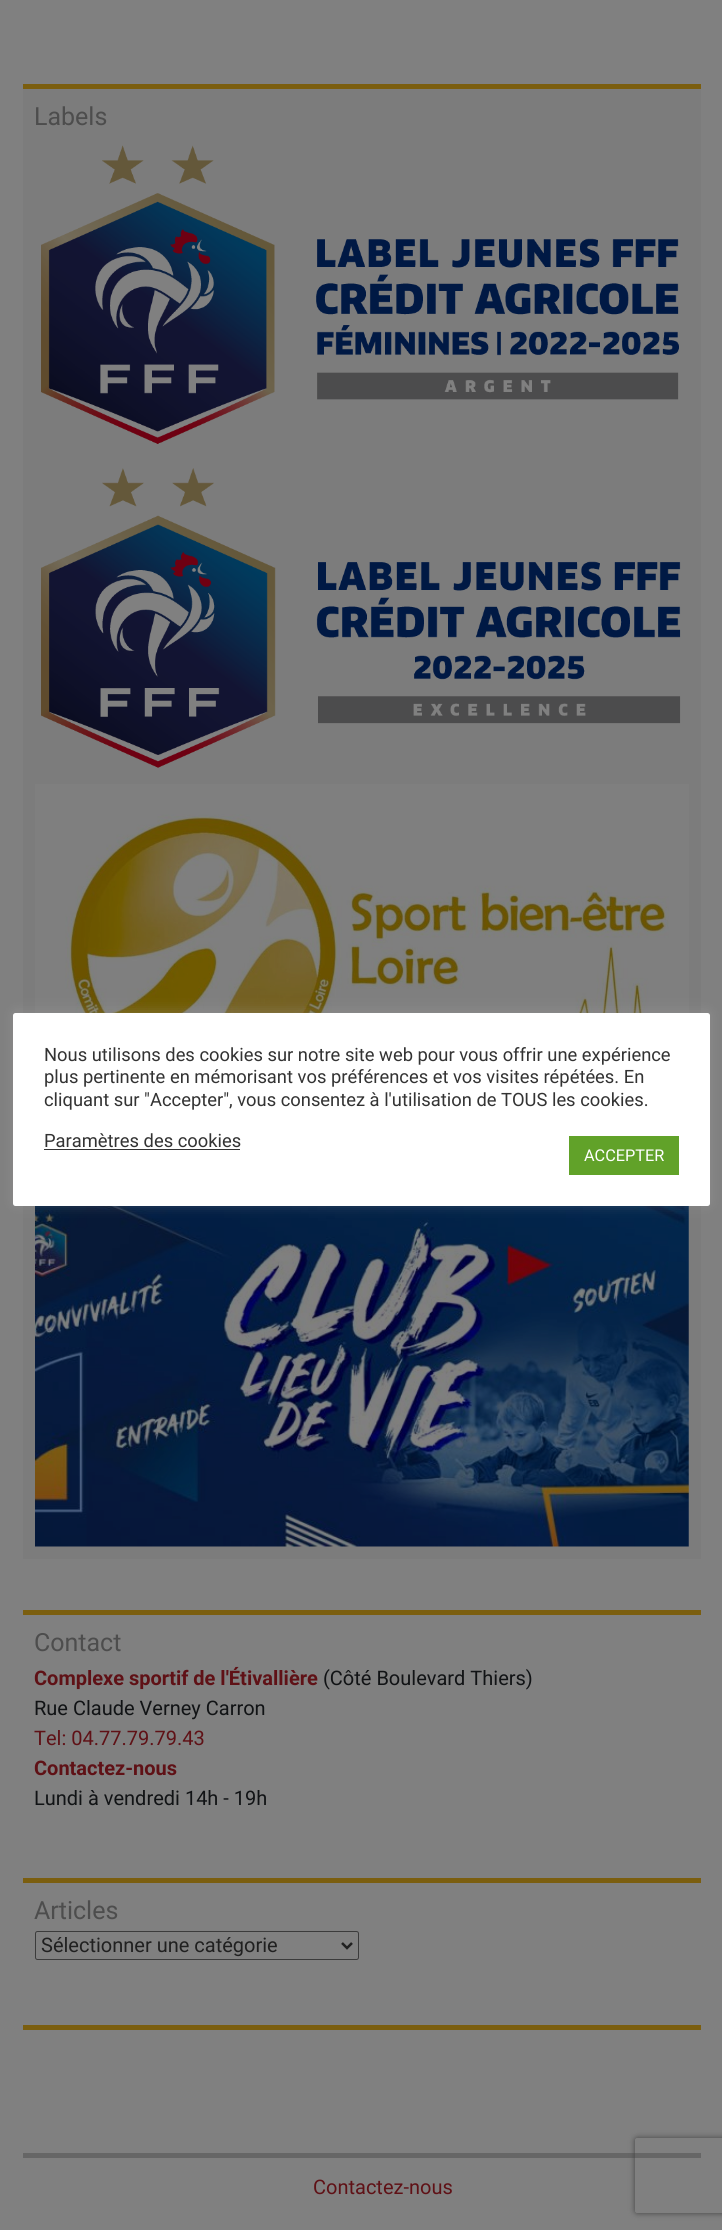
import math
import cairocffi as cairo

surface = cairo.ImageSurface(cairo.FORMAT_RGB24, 722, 2230)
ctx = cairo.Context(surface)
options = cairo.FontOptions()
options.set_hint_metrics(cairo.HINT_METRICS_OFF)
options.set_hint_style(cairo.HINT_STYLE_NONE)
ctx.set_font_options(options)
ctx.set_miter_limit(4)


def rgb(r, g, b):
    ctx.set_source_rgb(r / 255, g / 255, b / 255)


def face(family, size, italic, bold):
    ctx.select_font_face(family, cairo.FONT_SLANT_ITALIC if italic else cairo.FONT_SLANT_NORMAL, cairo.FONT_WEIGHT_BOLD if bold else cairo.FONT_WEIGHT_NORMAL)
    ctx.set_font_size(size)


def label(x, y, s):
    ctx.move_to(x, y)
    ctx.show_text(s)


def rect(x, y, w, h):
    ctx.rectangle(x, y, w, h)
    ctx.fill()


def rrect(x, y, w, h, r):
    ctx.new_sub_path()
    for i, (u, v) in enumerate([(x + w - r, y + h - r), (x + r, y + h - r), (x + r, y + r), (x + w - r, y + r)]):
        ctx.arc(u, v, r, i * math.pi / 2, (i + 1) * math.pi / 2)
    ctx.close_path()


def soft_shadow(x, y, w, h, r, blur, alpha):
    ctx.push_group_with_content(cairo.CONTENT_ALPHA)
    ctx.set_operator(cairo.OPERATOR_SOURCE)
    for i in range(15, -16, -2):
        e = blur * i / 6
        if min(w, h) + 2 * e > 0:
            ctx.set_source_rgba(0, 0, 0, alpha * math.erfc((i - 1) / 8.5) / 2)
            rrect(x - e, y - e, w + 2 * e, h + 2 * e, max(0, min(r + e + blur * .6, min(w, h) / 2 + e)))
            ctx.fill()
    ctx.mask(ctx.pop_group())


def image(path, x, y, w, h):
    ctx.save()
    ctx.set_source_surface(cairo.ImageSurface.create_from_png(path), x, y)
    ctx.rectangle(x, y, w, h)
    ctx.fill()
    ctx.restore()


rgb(128, 128, 128)
ctx.paint()
rgb(124, 124, 124)
rect(23, 89, 678, 1470)
rgb(123, 94, 15)
rect(23, 84, 678, 5)
face('Roboto', 25, 0, 0)
rgb(77, 77, 77)
label(34, 125, 'Labels')
image('image0.png', 41, 145, 638, 299)
image('image1.png', 41, 468, 640, 300)
image('image2.png', 35, 784, 654, 229)
image('image3.png', 35, 1206, 654, 341)
rgb(123, 94, 15)
rect(23, 1610, 678, 5)
rgb(77, 77, 77)
label(34, 1651, 'Contact')
face('Roboto', 20, 0, 1)
rgb(95, 17, 22)
label(34, 1685, 'Complexe sportif de l\'Étivallière')
face('Roboto', 20, 0, 0)
rgb(17, 19, 21)
label(323, 1685, '(Côté Boulevard Thiers)')
label(34, 1715, 'Rue Claude Verney Carron')
rgb(95, 17, 22)
label(34, 1745, 'Tel: 04.77.79.79.43')
face('Roboto', 20, 0, 1)
label(34, 1775, 'Contactez-nous')
face('Roboto', 20, 0, 0)
rgb(17, 19, 21)
label(34, 1805, 'Lundi à vendredi 14h - 19h')
rgb(123, 94, 15)
rect(23, 1878, 678, 5)
face('Roboto', 25, 0, 0)
rgb(77, 77, 77)
label(34, 1919, 'Articles')
rrect(35.5, 1931.5, 323, 28, 2)
rgb(59, 59, 59)
ctx.set_line_width(1)
ctx.stroke()
ctx.new_path()
ctx.move_to(342, 1943)
ctx.line_to(347, 1948)
ctx.line_to(352, 1943)
rgb(32, 32, 32)
ctx.set_line_width(2.5)
ctx.stroke()
face('Roboto', 20, 0, 0)
label(41, 1952, 'Sélectionner une catégorie')
rgb(123, 94, 15)
rect(23, 2025, 678, 5)
rgb(102, 102, 102)
rect(23, 2153, 678, 5)
rgb(95, 17, 22)
label(313, 2194, 'Contactez-nous')
rgb(172, 171, 171)
soft_shadow(13, 1011, 697, 194, 2.5, 6, 0.3)
rgb(255, 255, 255)
rrect(13, 1013, 697, 193, 2.5)
ctx.fill()
face('Roboto', 18.35, 0, 0)
rgb(51, 51, 51)
label(44, 1061, 'Nous utilisons des cookies sur notre site web pour vous offrir une expérience')
label(44, 1083, 'plus pertinente en mémorisant vos préférences et vos visites répétées. En')
label(44, 1106, 'cliquant sur "Accepter", vous consentez à l\'utilisation de TOUS les cookies.')
label(44, 1147, 'Paramètres des cookies')
rect(44, 1149, 196, 1)
rgb(97, 162, 41)
rect(569, 1136, 110, 39)
face('Roboto', 16.25, 0, 0)
rgb(255, 255, 255)
label(584, 1161, 'ACCEPTER')
ctx.save()
ctx.set_fill_rule(cairo.FILL_RULE_EVEN_ODD)
ctx.new_path()
ctx.move_to(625, 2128)
ctx.line_to(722, 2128)
ctx.line_to(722, 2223)
ctx.line_to(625, 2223)
ctx.close_path()
ctx.move_to(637.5, 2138)
ctx.line_to(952.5, 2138)
ctx.curve_to(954, 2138, 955, 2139, 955, 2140.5)
ctx.line_to(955, 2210.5)
ctx.curve_to(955, 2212, 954, 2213, 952.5, 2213)
ctx.line_to(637.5, 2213)
ctx.curve_to(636, 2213, 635, 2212, 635, 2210.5)
ctx.line_to(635, 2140.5)
ctx.curve_to(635, 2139, 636, 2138, 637.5, 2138)
ctx.close_path()
ctx.clip()
rgb(64, 64, 64)
soft_shadow(635, 2138, 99, 75, 2.5, 3, 1)
ctx.restore()
surface.write_to_png('render.png')
